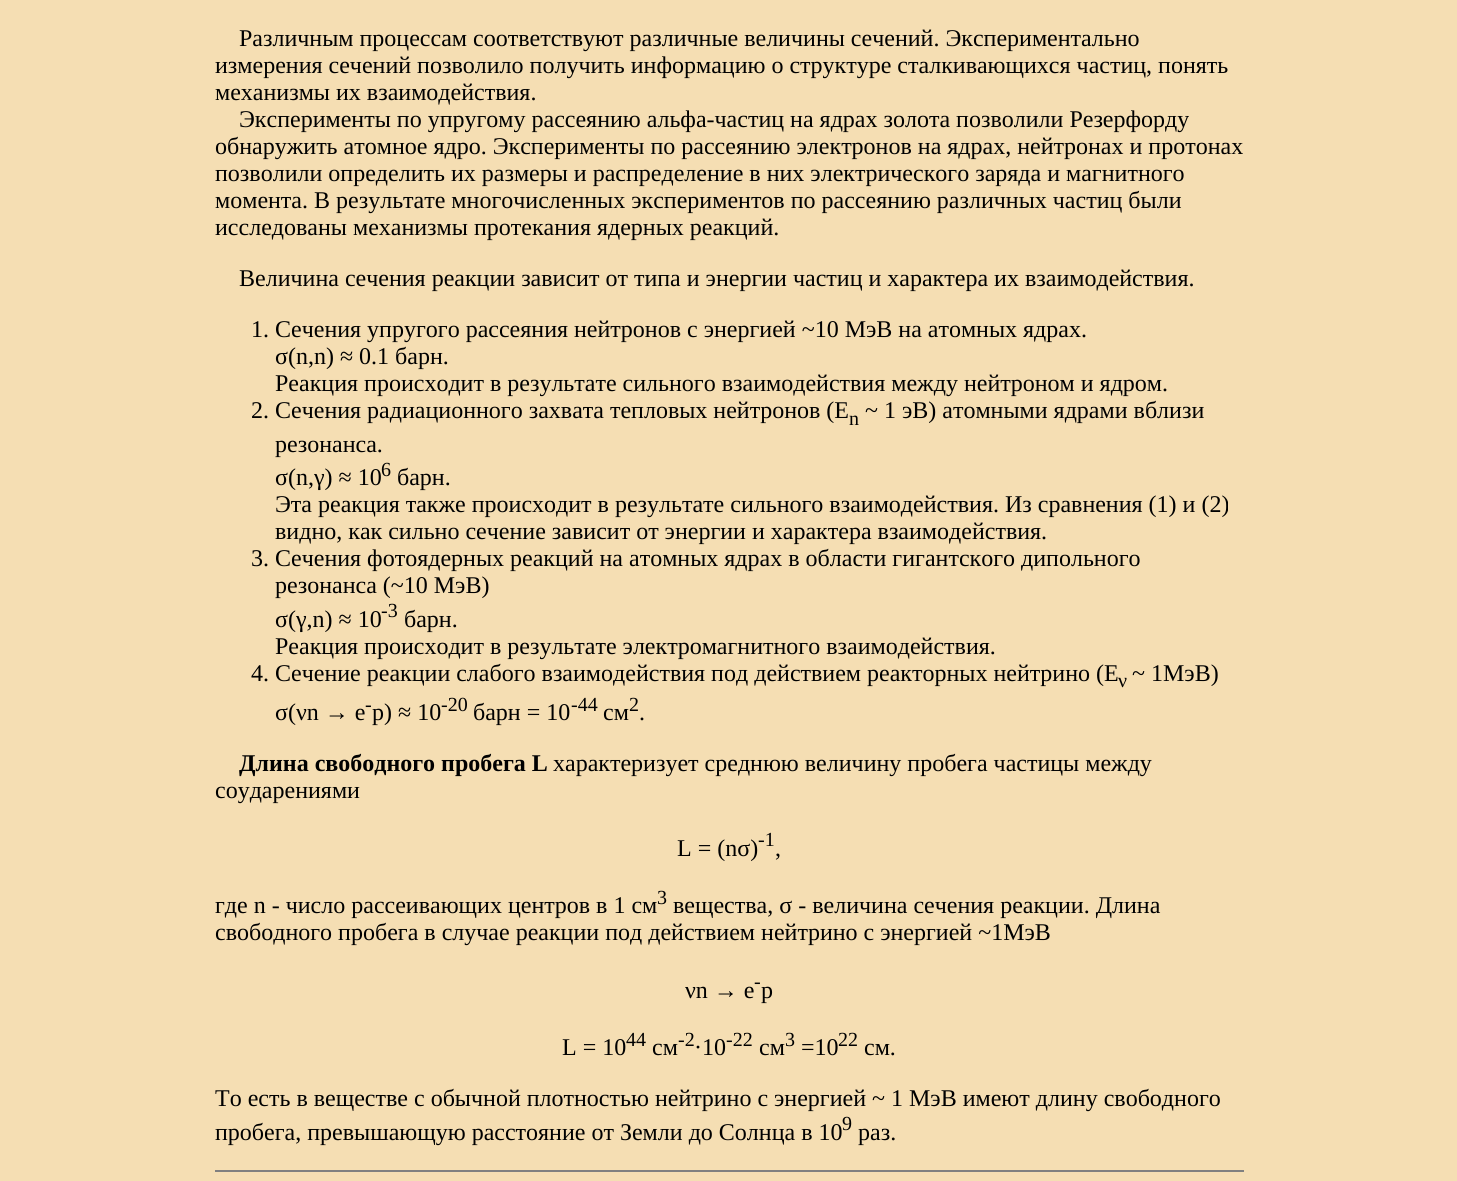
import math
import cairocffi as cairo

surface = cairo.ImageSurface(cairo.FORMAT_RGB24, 1457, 1181)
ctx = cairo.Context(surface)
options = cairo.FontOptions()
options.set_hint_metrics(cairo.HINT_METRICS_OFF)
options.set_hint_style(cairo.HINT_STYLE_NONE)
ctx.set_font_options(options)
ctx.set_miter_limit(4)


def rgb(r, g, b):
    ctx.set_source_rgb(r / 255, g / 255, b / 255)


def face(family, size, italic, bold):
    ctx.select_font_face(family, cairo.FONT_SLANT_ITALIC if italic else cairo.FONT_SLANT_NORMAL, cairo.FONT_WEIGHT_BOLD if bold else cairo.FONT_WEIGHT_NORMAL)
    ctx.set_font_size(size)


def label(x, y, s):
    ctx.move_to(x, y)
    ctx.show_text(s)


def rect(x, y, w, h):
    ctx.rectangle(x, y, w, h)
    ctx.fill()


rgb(245, 222, 179)
ctx.paint()
face('Liberation Serif', 24, 0, 0)
rgb(0, 0, 0)
label(239, 46, 'Различным процессам соответствуют различные величины сечений. Экспериментально')
label(215, 73, 'измерения сечений позволило получить информацию о структуре сталкивающихся частиц, понять')
label(215, 100, 'механизмы их взаимодействия.')
label(239, 127, 'Эксперименты по упругому рассеянию альфа-частиц на ядрах золота позволили Резерфорду')
label(215, 154, 'обнаружить атомное ядро. Эксперименты по рассеянию электронов на ядрах, нейтронах и протонах')
label(215, 181, 'позволили определить их размеры и распределение в них электрического заряда и магнитного')
label(215, 208, 'момента. В результате многочисленных экспериментов по рассеянию различных частиц были')
label(215, 235, 'исследованы механизмы протекания ядерных реакций.')
label(239, 286, 'Величина сечения реакции зависит от типа и энергии частиц и характера их взаимодействия.')
label(251, 337, '1. Сечения упругого рассеяния нейтронов с энергией ~10 МэВ на атомных ядрах.')
label(275, 364, 'σ(n,n) ≈ 0.1 барн.')
label(275, 391, 'Реакция происходит в результате сильного взаимодействия между нейтроном и ядром.')
label(251, 418, '2. Сечения радиационного захвата тепловых нейтронов (E')
face('Liberation Serif', 20, 0, 0)
label(849, 425, 'n')
face('Liberation Serif', 24, 0, 0)
label(865, 418, '~ 1 эВ) атомными ядрами вблизи')
label(275, 452, 'резонанса.')
label(275, 485, 'σ(n,γ) ≈ 10')
face('Liberation Serif', 20, 0, 0)
label(381, 476, '6')
face('Liberation Serif', 24, 0, 0)
label(397, 485, 'барн.')
label(275, 512, 'Эта реакция также происходит в результате сильного взаимодействия. Из сравнения (1) и (2)')
label(275, 539, 'видно, как сильно сечение зависит от энергии и характера взаимодействия.')
label(251, 566, '3. Сечения фотоядерных реакций на атомных ядрах в области гигантского дипольного')
label(275, 593, 'резонанса (~10 МэВ)')
label(275, 627, 'σ(γ,n) ≈ 10')
face('Liberation Serif', 20, 0, 0)
label(381, 617, '-3')
face('Liberation Serif', 24, 0, 0)
label(404, 627, 'барн.')
label(275, 654, 'Реакция происходит в результате электромагнитного взаимодействия.')
label(251, 681, '4. Сечение реакции слабого взаимодействия под действием реакторных нейтрино (E')
face('Liberation Serif', 20, 0, 0)
label(1118, 687, 'ν')
face('Liberation Serif', 24, 0, 0)
label(1132, 681, '~ 1МэВ)')
label(275, 720, 'σ(νn → e')
face('Liberation Serif', 20, 0, 0)
label(365, 711, '-')
face('Liberation Serif', 24, 0, 0)
label(372, 720, 'p) ≈ 10')
face('Liberation Serif', 20, 0, 0)
label(441, 711, '-20')
face('Liberation Serif', 24, 0, 0)
label(473, 720, 'барн = 10')
face('Liberation Serif', 20, 0, 0)
label(571, 711, '-44')
label(629, 711, '2')
face('Liberation Serif', 24, 0, 0)
label(603, 720, 'см')
label(639, 720, '.')
face('Liberation Serif', 24, 0, 1)
label(239, 771, 'Длина свободного пробега L')
face('Liberation Serif', 24, 0, 0)
label(553, 771, 'характеризует среднюю величину пробега частицы между')
label(215, 798, 'соударениями')
label(677, 856, 'L = (nσ)')
face('Liberation Serif', 20, 0, 0)
label(758, 846, '-1')
face('Liberation Serif', 24, 0, 0)
label(775, 856, ',')
label(215, 913, 'где n - число рассеивающих центров в 1 см')
face('Liberation Serif', 20, 0, 0)
label(657, 904, '3')
face('Liberation Serif', 24, 0, 0)
label(673, 913, 'вещества, σ - величина сечения реакции. Длина')
label(215, 940, 'свободного пробега в случае реакции под действием нейтрино с энергией ~1МэВ')
face('Liberation Serif', 20, 0, 0)
label(754, 988, '-')
face('Liberation Serif', 24, 0, 0)
label(685, 998, 'νn → e')
label(761, 998, 'p')
label(562, 1055, 'L = 10')
face('Liberation Serif', 20, 0, 0)
label(626, 1046, '44')
face('Liberation Serif', 24, 0, 0)
label(652, 1055, 'см')
face('Liberation Serif', 20, 0, 0)
label(678, 1046, '-2')
face('Liberation Serif', 24, 0, 0)
label(694, 1055, '·10')
face('Liberation Serif', 20, 0, 0)
label(726, 1046, '-22')
face('Liberation Serif', 24, 0, 0)
label(759, 1055, 'см')
face('Liberation Serif', 20, 0, 0)
label(785, 1046, '3')
face('Liberation Serif', 24, 0, 0)
label(801, 1055, '=10')
face('Liberation Serif', 20, 0, 0)
label(838, 1046, '22')
face('Liberation Serif', 24, 0, 0)
label(864, 1055, 'см.')
label(215, 1106, 'То есть в веществе с обычной плотностью нейтрино с энергией ~ 1 МэВ имеют длину свободного')
label(215, 1140, 'пробега, превышающую расстояние от Земли до Солнца в 10')
face('Liberation Serif', 20, 0, 0)
label(842, 1130, '9')
face('Liberation Serif', 24, 0, 0)
label(858, 1140, 'раз.')
rgb(128, 128, 128)
rect(215, 1170, 1029, 2)
surface.write_to_png('render.png')
